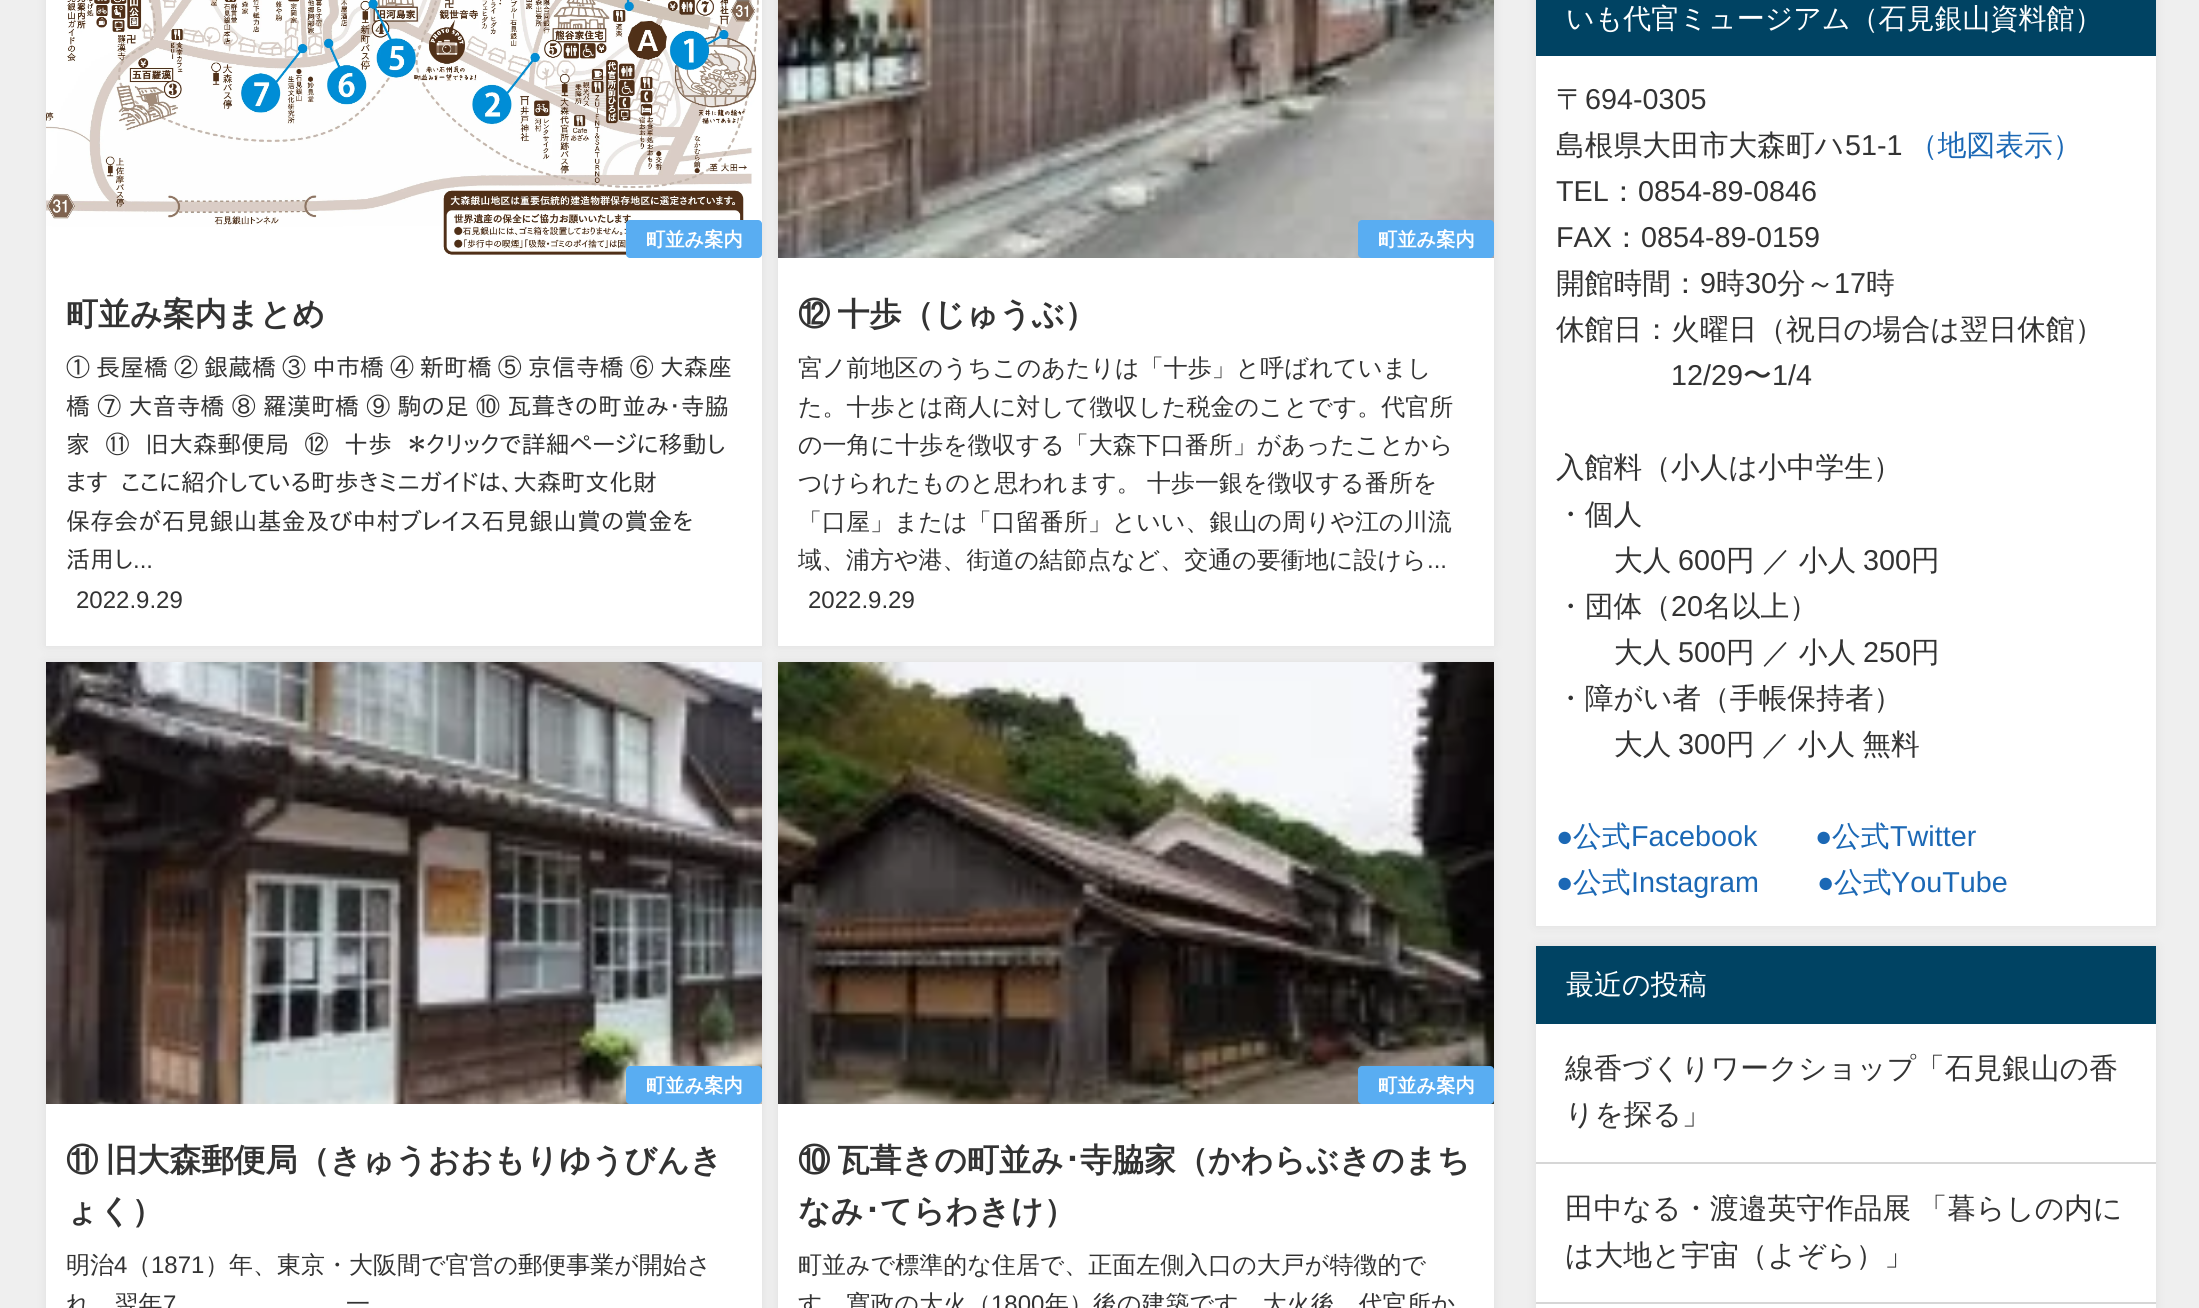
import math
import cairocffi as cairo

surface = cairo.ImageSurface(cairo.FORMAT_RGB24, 2199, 1308)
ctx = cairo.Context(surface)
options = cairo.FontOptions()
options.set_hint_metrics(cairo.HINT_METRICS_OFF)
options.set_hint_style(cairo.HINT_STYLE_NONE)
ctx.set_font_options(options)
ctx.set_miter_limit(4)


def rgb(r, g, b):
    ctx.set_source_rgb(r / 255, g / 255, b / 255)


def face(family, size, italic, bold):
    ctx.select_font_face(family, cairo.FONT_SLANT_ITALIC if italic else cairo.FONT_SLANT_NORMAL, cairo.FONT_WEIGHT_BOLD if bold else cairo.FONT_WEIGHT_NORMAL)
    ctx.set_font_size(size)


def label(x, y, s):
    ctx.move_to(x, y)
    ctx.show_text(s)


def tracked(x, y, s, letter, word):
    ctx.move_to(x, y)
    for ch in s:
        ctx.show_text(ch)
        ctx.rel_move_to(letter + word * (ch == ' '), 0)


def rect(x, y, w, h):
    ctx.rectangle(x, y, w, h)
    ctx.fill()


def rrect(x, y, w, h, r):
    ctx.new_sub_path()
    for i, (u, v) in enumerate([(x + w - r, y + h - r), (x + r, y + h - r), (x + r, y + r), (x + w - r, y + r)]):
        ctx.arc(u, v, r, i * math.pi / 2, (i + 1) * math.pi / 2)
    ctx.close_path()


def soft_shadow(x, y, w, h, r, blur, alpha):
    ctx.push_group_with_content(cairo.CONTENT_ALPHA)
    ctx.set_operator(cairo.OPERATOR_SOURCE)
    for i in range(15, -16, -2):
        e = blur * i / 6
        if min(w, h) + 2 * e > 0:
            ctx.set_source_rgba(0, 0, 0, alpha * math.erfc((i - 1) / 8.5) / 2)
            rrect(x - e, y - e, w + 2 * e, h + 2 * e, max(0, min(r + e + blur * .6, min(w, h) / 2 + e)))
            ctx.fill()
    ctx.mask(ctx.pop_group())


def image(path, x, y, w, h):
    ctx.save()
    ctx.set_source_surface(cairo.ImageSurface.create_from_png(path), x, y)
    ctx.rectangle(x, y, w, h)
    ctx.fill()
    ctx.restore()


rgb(239, 239, 239)
ctx.paint()
rgb(150, 150, 150)
soft_shadow(46, -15, 716, 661, 0, 5, 0.2)
rgb(255, 255, 255)
rect(46, 258, 716, 388)
image('image0.png', 46, 0, 716, 258)
rgb(89, 173, 242)
rrect(626, 220, 136, 38, 4)
ctx.fill()
face('WenQuanYi Zen Hei', 19.25, 0, 1)
rgb(255, 255, 255)
label(646, 246, '町並み案内')
face('WenQuanYi Zen Hei', 32, 0, 1)
rgb(51, 51, 51)
label(66, 325, '町並み案内まとめ')
face('IPAPGothic', 24, 0, 0)
tracked(66, 376, '① 長屋橋 ② 銀蔵橋 ③ 中市橋 ④ 新町橋 ⑤ 京信寺橋 ⑥ 大森座', 0, -0.5)
tracked(66, 415, '橋 ⑦ 大音寺橋 ⑧ 羅漢町橋 ⑨ 駒の足 ⑩ 瓦葺きの町並み･寺脇', 0, 0.75)
tracked(66, 453, '家 ⑪ 旧大森郵便局 ⑫ 十歩 ＊クリックで詳細ページに移動し', 0, 9)
label(66, 491, 'ます')
label(121, 491, 'ここに紹介している町歩きミニガイドは、大森町文化財')
label(66, 530, '保存会が石見銀山基金及び中村ブレイス石見銀山賞の賞金を')
label(66, 568, '活用し')
face('Liberation Sans', 24, 0, 0)
label(133, 568, '...')
label(76, 608, '2022.9.29')
rgb(150, 150, 150)
soft_shadow(778, -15, 716, 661, 0, 5, 0.2)
rgb(255, 255, 255)
rect(778, 258, 716, 388)
image('image1.png', 778, 0, 716, 258)
rgb(89, 173, 242)
rrect(1358, 220, 136, 38, 4)
ctx.fill()
face('WenQuanYi Zen Hei', 19.25, 0, 1)
rgb(255, 255, 255)
label(1378, 246, '町並み案内')
face('WenQuanYi Zen Hei', 32, 0, 1)
rgb(51, 51, 51)
tracked(798, 325, '⑫ 十歩（じゅうぶ）', 0, -2)
face('WenQuanYi Zen Hei Medium', 24, 0, 0)
label(798, 376, '宮ノ前地区のうちこのあたりは「十歩」と呼ばれていまし')
label(798, 415, 'た。十歩とは商人に対して徴収した税金のことです。代官所')
label(798, 453, 'の一角に十歩を徴収する「大森下口番所」があったことから')
tracked(798, 491, 'つけられたものと思われます。 十歩一銀を徴収する番所を', 0, -1)
label(798, 530, '「口屋」または「口留番所」といい、銀山の周りや江の川流')
label(798, 568, '域、浦方や港、街道の結節点など、交通の要衝地に設けら')
face('Liberation Sans', 24, 0, 0)
label(1427, 568, '...')
label(808, 608, '2022.9.29')
rgb(150, 150, 150)
soft_shadow(46, 662, 716, 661, 0, 5, 0.2)
rgb(255, 255, 255)
rect(46, 1104, 716, 204)
image('image2.png', 46, 662, 716, 442)
rgb(89, 173, 242)
rrect(626, 1066, 136, 38, 4)
ctx.fill()
face('WenQuanYi Zen Hei', 19.25, 0, 1)
rgb(255, 255, 255)
label(646, 1092, '町並み案内')
face('WenQuanYi Zen Hei', 32, 0, 1)
rgb(51, 51, 51)
tracked(66, 1171, '⑪ 旧大森郵便局（きゅうおおもりゆうびんき', 0, -2)
label(66, 1222, 'ょく）')
face('WenQuanYi Zen Hei Medium', 24, 0, 0)
label(66, 1273, '明治')
face('Liberation Sans', 24, 0, 0)
label(114, 1273, '4')
face('WenQuanYi Zen Hei Medium', 24, 0, 0)
label(127, 1273, '（')
face('Liberation Sans', 24, 0, 0)
label(151, 1273, '1871')
face('WenQuanYi Zen Hei Medium', 24, 0, 0)
label(205, 1273, '）年、東京・大阪間で官営の郵便事業が開始さ')
label(66, 1312, 'れ、翌年')
face('Liberation Sans', 24, 0, 0)
label(163, 1312, '7')
face('WenQuanYi Zen Hei Medium', 24, 0, 0)
label(346, 1312, '一')
rgb(150, 150, 150)
soft_shadow(778, 662, 716, 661, 0, 5, 0.2)
rgb(255, 255, 255)
rect(778, 1104, 716, 204)
image('image3.png', 778, 662, 716, 442)
rgb(89, 173, 242)
rrect(1358, 1066, 136, 38, 4)
ctx.fill()
face('WenQuanYi Zen Hei', 19.25, 0, 1)
rgb(255, 255, 255)
label(1378, 1092, '町並み案内')
face('WenQuanYi Zen Hei', 32, 0, 1)
rgb(51, 51, 51)
tracked(798, 1171, '⑩ 瓦葺きの町並み', 0, -2)
face('IPAPGothic', 32, 0, 1)
label(1064, 1171, '･')
face('WenQuanYi Zen Hei', 32, 0, 1)
label(1080, 1171, '寺脇家（かわらぶきのまち')
label(798, 1222, 'なみ')
face('IPAPGothic', 32, 0, 1)
label(864, 1222, '･')
face('WenQuanYi Zen Hei', 32, 0, 1)
label(880, 1222, 'てらわきけ）')
face('WenQuanYi Zen Hei Medium', 24, 0, 0)
label(798, 1273, '町並みで標準的な住居で、正面左側入口の大戸が特徴的で')
label(798, 1312, 'す。寛政の大火（')
face('Liberation Sans', 24, 0, 0)
label(991, 1312, '1800')
face('WenQuanYi Zen Hei Medium', 24, 0, 0)
label(1045, 1312, '年）後の建築です。大火後、代官所か')
rgb(150, 150, 150)
soft_shadow(1536, -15, 620, 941, 0, 5, 0.2)
rgb(255, 255, 255)
rect(1536, 56, 620, 870)
rgb(0, 67, 99)
rect(1536, 0, 620, 56)
face('WenQuanYi Zen Hei Medium', 28, 0, 0)
rgb(255, 255, 255)
label(1566, 28, 'いも代官ミュージアム（石見銀山資料館）')
face('WenQuanYi Zen Hei Medium', 28.75, 0, 0)
rgb(51, 51, 51)
label(1556, 109, '〒')
face('Liberation Sans', 28.75, 0, 0)
label(1585, 109, '694-0305')
face('WenQuanYi Zen Hei Medium', 28.75, 0, 0)
label(1556, 155, '島根県大田市大森町ハ')
face('Liberation Sans', 28.75, 0, 0)
label(1845, 155, '51-1')
face('WenQuanYi Zen Hei Medium', 28.75, 0, 0)
rgb(27, 104, 181)
label(1909, 155, '（地図表示）')
face('Liberation Sans', 28.75, 0, 0)
rgb(51, 51, 51)
label(1556, 201, 'TEL')
face('WenQuanYi Zen Hei Medium', 28.75, 0, 0)
label(1609, 201, '：')
face('Liberation Sans', 28.75, 0, 0)
label(1638, 201, '0854-89-0846')
label(1556, 247, 'FAX')
face('WenQuanYi Zen Hei Medium', 28.75, 0, 0)
label(1612, 247, '：')
face('Liberation Sans', 28.75, 0, 0)
label(1641, 247, '0854-89-0159')
face('WenQuanYi Zen Hei Medium', 28.75, 0, 0)
label(1556, 293, '開館時間：')
face('Liberation Sans', 28.75, 0, 0)
label(1700, 293, '9')
face('WenQuanYi Zen Hei Medium', 28.75, 0, 0)
label(1716, 293, '時')
face('Liberation Sans', 28.75, 0, 0)
label(1745, 293, '30')
face('WenQuanYi Zen Hei Medium', 28.75, 0, 0)
label(1777, 293, '分～')
face('Liberation Sans', 28.75, 0, 0)
label(1834, 293, '17')
face('WenQuanYi Zen Hei Medium', 28.75, 0, 0)
label(1866, 293, '時')
label(1556, 339, '休館日：火曜日（祝日の場合は翌日休館）')
face('Liberation Sans', 28.75, 0, 0)
label(1671, 385, '12/29')
face('WenQuanYi Zen Hei Medium', 28.75, 0, 0)
label(1743, 385, '〜')
face('Liberation Sans', 28.75, 0, 0)
label(1772, 385, '1/4')
face('WenQuanYi Zen Hei Medium', 28.75, 0, 0)
label(1556, 477, '入館料（小人は小中学生）')
label(1556, 524, '・個人')
label(1614, 570, '大人')
face('Liberation Sans', 28.75, 0, 0)
label(1678, 570, '600')
face('WenQuanYi Zen Hei Medium', 28.75, 0, 0)
tracked(1726, 570, '円 ／ 小人', 0, -1)
face('Liberation Sans', 28.75, 0, 0)
label(1863, 570, '300')
face('WenQuanYi Zen Hei Medium', 28.75, 0, 0)
label(1911, 570, '円')
label(1556, 616, '・団体（')
face('Liberation Sans', 28.75, 0, 0)
label(1671, 616, '20')
face('WenQuanYi Zen Hei Medium', 28.75, 0, 0)
label(1703, 616, '名以上）')
label(1614, 662, '大人')
face('Liberation Sans', 28.75, 0, 0)
label(1678, 662, '500')
face('WenQuanYi Zen Hei Medium', 28.75, 0, 0)
tracked(1726, 662, '円 ／ 小人', 0, -1)
face('Liberation Sans', 28.75, 0, 0)
label(1863, 662, '250')
face('WenQuanYi Zen Hei Medium', 28.75, 0, 0)
label(1911, 662, '円')
label(1556, 708, '・障がい者（手帳保持者）')
label(1614, 754, '大人')
face('Liberation Sans', 28.75, 0, 0)
label(1678, 754, '300')
face('WenQuanYi Zen Hei Medium', 28.75, 0, 0)
tracked(1726, 754, '円 ／ 小人 無料', 0, -1.5)
face('Liberation Sans', 28.75, 0, 0)
rgb(27, 104, 181)
label(1556, 846, '●')
face('WenQuanYi Zen Hei Medium', 28.75, 0, 0)
label(1573, 846, '公式')
face('Liberation Sans', 28.75, 0, 0)
label(1631, 846, 'Facebook')
label(1815, 846, '●')
face('WenQuanYi Zen Hei Medium', 28.75, 0, 0)
label(1832, 846, '公式')
face('Liberation Sans', 28.75, 0, 0)
label(1890, 846, 'Twitter')
label(1556, 892, '●')
face('WenQuanYi Zen Hei Medium', 28.75, 0, 0)
label(1573, 892, '公式')
face('Liberation Sans', 28.75, 0, 0)
label(1631, 892, 'Instagram')
label(1817, 892, '●')
face('WenQuanYi Zen Hei Medium', 28.75, 0, 0)
label(1834, 892, '公式')
face('Liberation Sans', 28.75, 0, 0)
label(1891, 892, 'YouTube')
rgb(150, 150, 150)
soft_shadow(1536, 946, 620, 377, 0, 5, 0.2)
rgb(255, 255, 255)
rect(1536, 1024, 620, 284)
rgb(0, 67, 99)
rect(1536, 946, 620, 78)
face('WenQuanYi Zen Hei Medium', 28, 0, 0)
rgb(255, 255, 255)
label(1566, 994, '最近の投稿')
rgb(214, 214, 214)
rect(1536, 1162, 620, 2)
face('WenQuanYi Zen Hei Medium', 28.75, 0, 0)
rgb(51, 51, 51)
label(1565, 1078, '線香づくりワークショップ「石見銀山の香')
label(1565, 1124, 'りを探る」')
rgb(214, 214, 214)
rect(1536, 1302, 620, 2)
rgb(51, 51, 51)
tracked(1565, 1218, '田中なる・渡邉英守作品展 「暮らしの内に', 0, -1.5)
label(1565, 1265, 'は大地と宇宙（よぞら）」')
surface.write_to_png('render.png')
